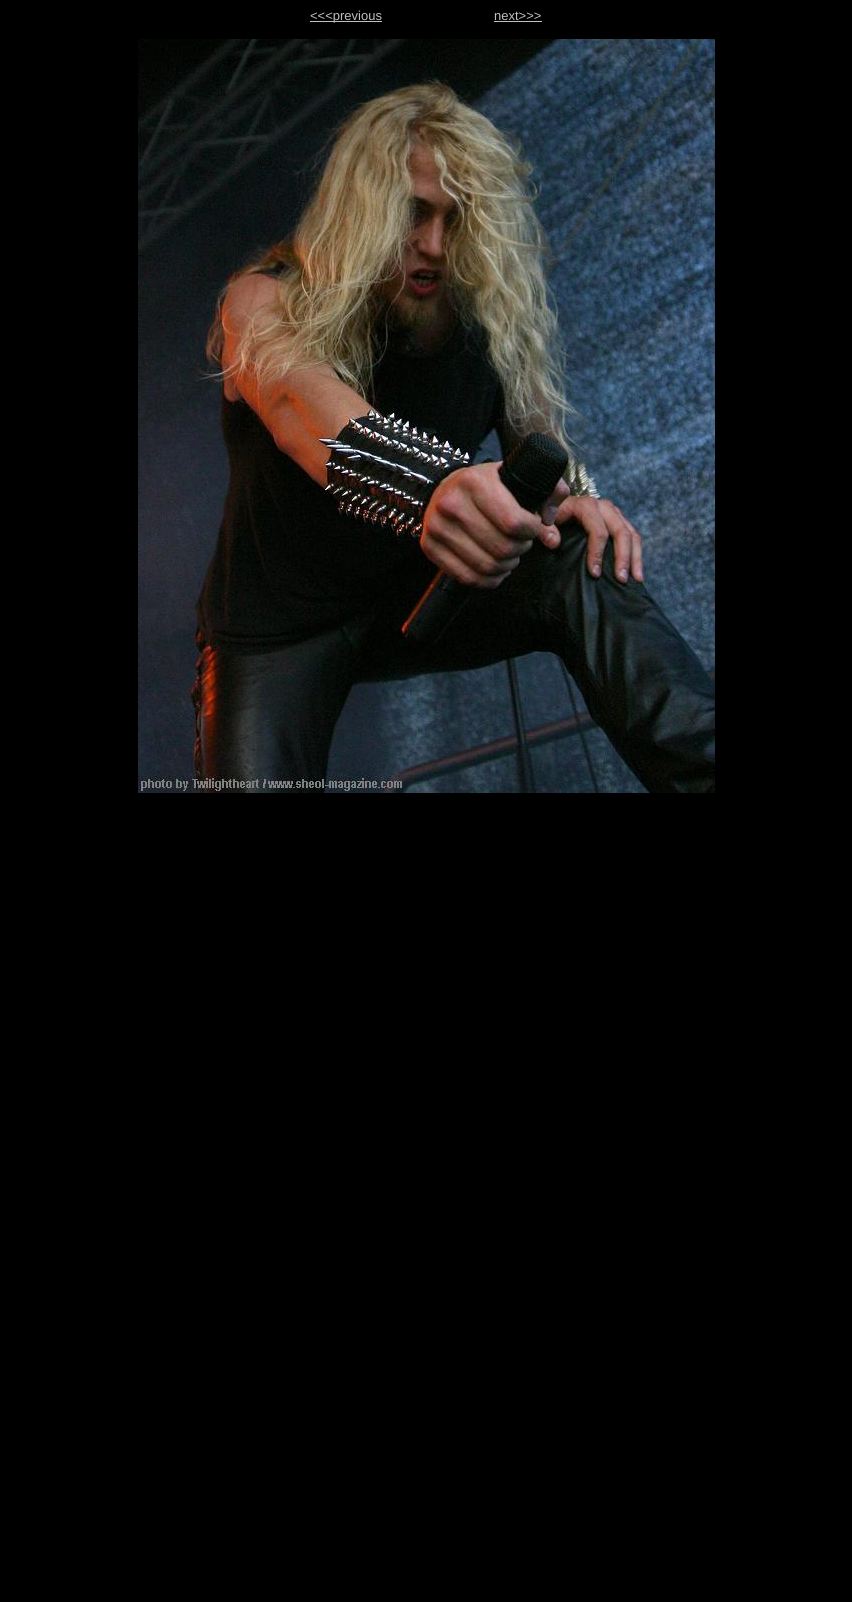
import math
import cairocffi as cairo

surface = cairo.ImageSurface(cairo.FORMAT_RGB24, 852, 1602)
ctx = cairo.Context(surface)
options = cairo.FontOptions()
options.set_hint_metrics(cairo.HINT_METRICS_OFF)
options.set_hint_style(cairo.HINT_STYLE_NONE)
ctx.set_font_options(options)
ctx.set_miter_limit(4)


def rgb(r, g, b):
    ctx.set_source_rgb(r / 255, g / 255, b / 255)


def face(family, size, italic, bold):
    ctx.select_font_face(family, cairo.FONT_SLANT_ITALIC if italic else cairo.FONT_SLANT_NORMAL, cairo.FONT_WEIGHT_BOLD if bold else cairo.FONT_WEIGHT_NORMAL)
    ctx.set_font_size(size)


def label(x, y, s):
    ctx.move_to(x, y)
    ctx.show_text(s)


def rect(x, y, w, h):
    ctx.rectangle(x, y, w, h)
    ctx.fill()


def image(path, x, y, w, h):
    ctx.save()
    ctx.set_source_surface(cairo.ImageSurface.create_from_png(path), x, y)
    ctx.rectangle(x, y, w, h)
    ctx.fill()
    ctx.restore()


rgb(0, 0, 0)
ctx.paint()
rgb(192, 192, 192)
rect(310, 21, 72, 1)
face('Liberation Sans', 13, 0, 0)
label(310, 20, '<<<previous')
label(494, 20, 'next>>>')
rect(494, 21, 48, 1)
image('image0.png', 138, 39, 577, 754)
surface.write_to_png('render.png')
